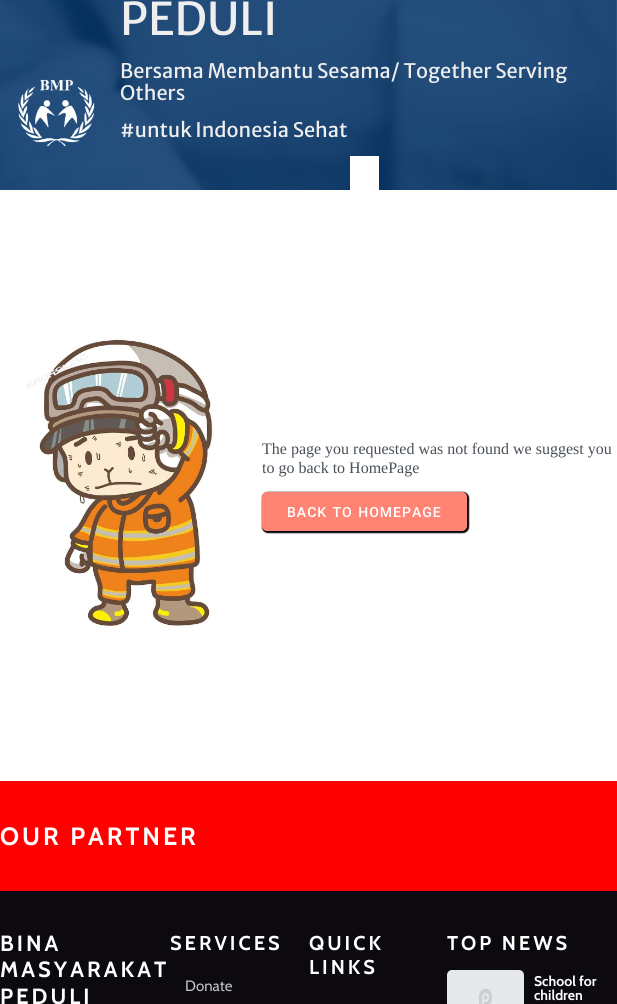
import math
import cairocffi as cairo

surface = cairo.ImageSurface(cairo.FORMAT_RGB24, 617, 1004)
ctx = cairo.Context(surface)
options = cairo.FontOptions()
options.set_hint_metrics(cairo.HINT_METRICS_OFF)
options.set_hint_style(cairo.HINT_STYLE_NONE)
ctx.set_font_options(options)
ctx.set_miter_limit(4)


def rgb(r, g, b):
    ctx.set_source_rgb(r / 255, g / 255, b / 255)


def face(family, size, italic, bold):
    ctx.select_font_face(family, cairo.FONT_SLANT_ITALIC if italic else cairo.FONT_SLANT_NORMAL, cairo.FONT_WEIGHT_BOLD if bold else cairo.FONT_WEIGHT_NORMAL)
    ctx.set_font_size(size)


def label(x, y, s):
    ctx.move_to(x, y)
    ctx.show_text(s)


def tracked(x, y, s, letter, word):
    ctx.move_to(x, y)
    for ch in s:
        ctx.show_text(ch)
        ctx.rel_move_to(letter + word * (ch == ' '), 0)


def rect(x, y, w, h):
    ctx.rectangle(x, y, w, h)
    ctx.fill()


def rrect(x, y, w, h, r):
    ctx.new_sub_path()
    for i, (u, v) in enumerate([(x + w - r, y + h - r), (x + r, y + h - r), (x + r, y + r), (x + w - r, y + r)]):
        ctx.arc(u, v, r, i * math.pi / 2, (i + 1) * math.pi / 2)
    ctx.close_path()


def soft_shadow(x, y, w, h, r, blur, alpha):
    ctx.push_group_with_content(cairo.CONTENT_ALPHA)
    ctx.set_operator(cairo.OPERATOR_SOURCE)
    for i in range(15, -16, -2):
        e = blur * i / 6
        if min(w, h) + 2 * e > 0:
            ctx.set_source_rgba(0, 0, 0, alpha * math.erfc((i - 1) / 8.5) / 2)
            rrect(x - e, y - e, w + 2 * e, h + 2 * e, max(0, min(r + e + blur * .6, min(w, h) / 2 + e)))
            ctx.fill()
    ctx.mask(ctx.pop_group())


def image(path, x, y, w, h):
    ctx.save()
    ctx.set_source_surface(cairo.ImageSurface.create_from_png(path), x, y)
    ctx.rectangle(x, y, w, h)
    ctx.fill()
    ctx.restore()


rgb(255, 255, 255)
ctx.paint()
image('image0.png', 0, 0, 617, 190)
ctx.set_source_rgba(0.027, 0.357, 0.71, 0.49)
rect(0, 0, 112, 190)
image('image1.png', 18, 79, 77, 68)
rect(112, 0, 505, 190)
face('Merriweather Sans', 45, 0, 0)
rgb(238, 238, 238)
label(120, 35, 'PEDULI')
face('Merriweather Sans', 20, 0, 0)
label(120, 78, 'Bersama Membantu Sesama/ Together Serving')
label(120, 100, 'Others')
label(120, 137, '#untuk Indonesia Sehat')
rgb(255, 255, 255)
rect(350, 156, 29, 34)
image('image2.png', 26, 339, 187, 287)
face('Liberation Serif', 16, 0, 0)
rgb(73, 80, 87)
label(262, 454, 'The page you requested was not found we suggest you')
label(262, 473, 'to go back to HomePage')
rgb(0, 0, 0)
soft_shadow(262, 492, 207, 41, 6, 0.5, 1)
rgb(255, 132, 116)
rrect(262, 492, 205, 39, 5)
ctx.fill()
face('Roboto Medium', 14, 0, 0)
rgb(255, 255, 255)
tracked(287, 517, 'BACK TO HOMEPAGE', 1, 1)
rgb(255, 0, 0)
rect(0, 781, 617, 110)
face('Cabin', 25, 0, 1)
rgb(255, 255, 255)
tracked(0, 845, 'OUR PARTNER', 3, 0)
rgb(12, 9, 15)
rect(0, 891, 617, 113)
face('Cabin', 22, 0, 1)
rgb(255, 255, 255)
tracked(0, 951, 'BINA', 3, 0)
tracked(0, 977, 'MASYARAKAT', 3, 0)
tracked(0, 1004, 'PEDULI', 3, 0)
face('Cabin', 20, 0, 1)
tracked(170, 950, 'SERVICES', 3, 0)
face('Cabin', 15, 0, 0)
rgb(196, 197, 199)
label(185, 991, 'Donate')
face('Cabin', 20, 0, 1)
rgb(255, 255, 255)
tracked(309, 950, 'QUICK', 3, 0)
tracked(309, 974, 'LINKS', 3, 0)
tracked(447, 950, 'TOP NEWS', 3, 0)
image('image3.png', 447, 970, 77, 34)
face('Cabin', 14, 0, 1)
label(534, 986, 'School for')
label(534, 1000, 'children')
surface.write_to_png('render.png')
